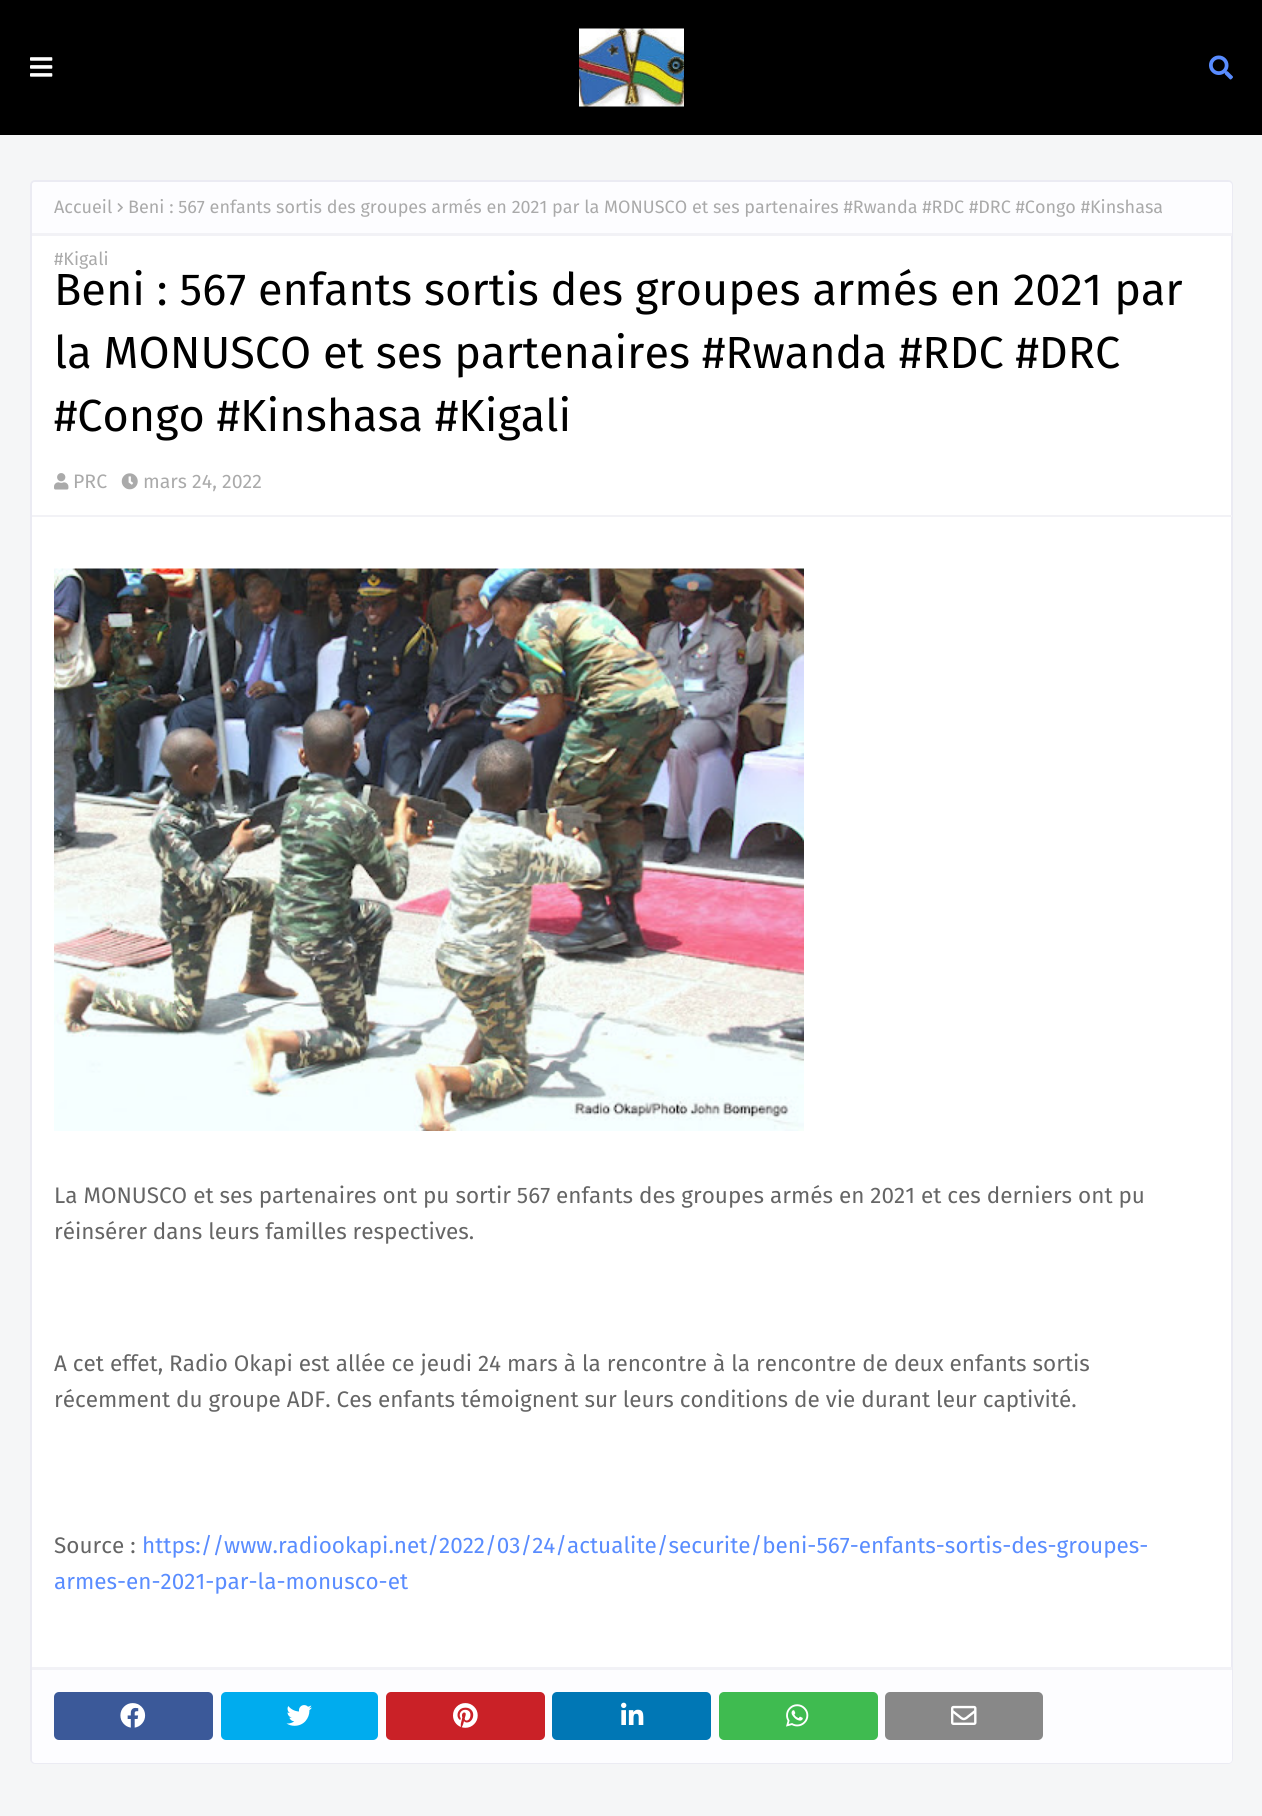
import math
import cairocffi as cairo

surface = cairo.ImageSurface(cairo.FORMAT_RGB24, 1262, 1816)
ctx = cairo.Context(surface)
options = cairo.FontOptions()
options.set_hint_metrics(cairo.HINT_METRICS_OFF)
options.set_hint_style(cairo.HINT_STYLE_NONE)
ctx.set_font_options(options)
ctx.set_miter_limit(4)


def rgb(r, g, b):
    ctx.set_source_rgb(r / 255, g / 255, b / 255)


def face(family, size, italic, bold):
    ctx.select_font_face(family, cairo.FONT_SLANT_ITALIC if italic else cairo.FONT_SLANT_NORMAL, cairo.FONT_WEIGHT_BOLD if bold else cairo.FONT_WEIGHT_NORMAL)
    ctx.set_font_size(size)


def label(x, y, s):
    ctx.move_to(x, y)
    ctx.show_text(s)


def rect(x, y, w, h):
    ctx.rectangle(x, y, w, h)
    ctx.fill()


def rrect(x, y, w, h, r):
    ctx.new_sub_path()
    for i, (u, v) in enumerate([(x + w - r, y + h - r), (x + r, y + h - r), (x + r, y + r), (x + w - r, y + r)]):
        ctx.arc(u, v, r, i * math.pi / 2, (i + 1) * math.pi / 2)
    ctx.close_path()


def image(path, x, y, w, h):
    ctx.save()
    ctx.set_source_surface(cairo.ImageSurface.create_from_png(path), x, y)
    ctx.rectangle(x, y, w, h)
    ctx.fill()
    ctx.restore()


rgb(245, 246, 247)
ctx.paint()
rgb(0, 0, 0)
rect(0, 0, 1262, 135)
image('image0.png', 30, 57, 23, 20)
image('image1.png', 579, 28, 105, 79)
image('image2.png', 1209, 55, 24, 25)
rgb(255, 255, 255)
rrect(31, 181, 1201, 1582, 4)
ctx.fill_preserve()
rgb(235, 235, 243)
ctx.stroke()
rgb(253, 253, 255)
ctx.new_path()
ctx.move_to(35, 182)
ctx.line_to(1229, 182)
ctx.curve_to(1230.5, 182, 1232, 183.5, 1232, 185)
ctx.line_to(1232, 236)
ctx.line_to(32, 236)
ctx.line_to(32, 185)
ctx.curve_to(32, 183.5, 33.5, 182, 35, 182)
ctx.close_path()
ctx.fill()
rgb(242, 242, 246)
rect(32, 233, 1200, 3)
face('Fira Sans', 18, 0, 0)
rgb(170, 170, 170)
label(54, 213, 'Accueil')
image('image3.png', 117, 203, 6, 9)
label(128, 213, 'Beni : 567 enfants sortis des groupes armés en 2021 par la MONUSCO et ses partenaires #Rwanda #RDC #DRC #Congo #Kinshasa')
label(54, 265, '#Kigali')
face('Fira Sans', 45, 0, 0)
rgb(0, 0, 0)
label(54, 305, 'Beni : 567 enfants sortis des groupes armés en 2021 par')
label(54, 368, 'la MONUSCO et ses partenaires #Rwanda #RDC #DRC')
label(54, 431, '#Congo #Kinshasa #Kigali')
image('image4.png', 54, 473, 15, 17)
face('Fira Sans', 19.5, 0, 0)
rgb(170, 170, 170)
label(73, 488, 'PRC')
image('image5.png', 121, 473, 17, 17)
label(143, 488, 'mars 24, 2022')
rgb(242, 242, 246)
rect(32, 515, 1200, 2)
image('image6.png', 54, 568, 750, 563)
face('Fira Sans', 22.5, 0, 0)
rgb(101, 101, 101)
label(54, 1203, 'La MONUSCO et ses partenaires ont pu sortir 567 enfants des groupes armés en 2021 et ces derniers ont pu')
label(54, 1239, 'réinsérer dans leurs familles respectives.')
label(54, 1371, 'A cet effet, Radio Okapi est allée ce jeudi 24 mars à la rencontre à la rencontre de deux enfants sortis')
label(54, 1407, 'récemment du groupe ADF. Ces enfants témoignent sur leurs conditions de vie durant leur captivité.')
label(54, 1553, 'Source :')
rgb(89, 140, 255)
label(142, 1553, 'https://www.radiookapi.net/2022/03/24/actualite/securite/beni-567-enfants-sortis-des-groupes-')
label(54, 1589, 'armes-en-2021-par-la-monusco-et')
rgb(253, 253, 255)
ctx.new_path()
ctx.move_to(32, 1667)
ctx.line_to(1232, 1667)
ctx.line_to(1232, 1760)
ctx.curve_to(1232, 1761.5, 1230.5, 1763, 1229, 1763)
ctx.line_to(35, 1763)
ctx.curve_to(33.5, 1763, 32, 1761.5, 32, 1760)
ctx.close_path()
ctx.fill()
rgb(242, 242, 246)
rect(32, 1667, 1200, 3)
rgb(59, 89, 153)
rrect(54, 1692, 159, 48, 5)
ctx.fill()
image('image7.png', 120, 1703, 26, 25)
rgb(0, 172, 238)
rrect(221, 1692, 157, 48, 5)
ctx.fill()
image('image8.png', 286, 1705, 26, 21)
rgb(202, 33, 39)
rrect(386, 1692, 159, 48, 5)
ctx.fill()
image('image9.png', 453, 1703, 25, 25)
rgb(0, 119, 181)
rrect(552, 1692, 159, 48, 5)
ctx.fill()
image('image10.png', 621, 1702, 23, 23)
rgb(63, 187, 80)
rrect(719, 1692, 159, 48, 5)
ctx.fill()
image('image11.png', 786, 1704, 23, 23)
rgb(136, 136, 136)
rrect(885, 1692, 158, 48, 5)
ctx.fill()
image('image12.png', 951, 1705, 26, 20)
surface.write_to_png('render.png')
